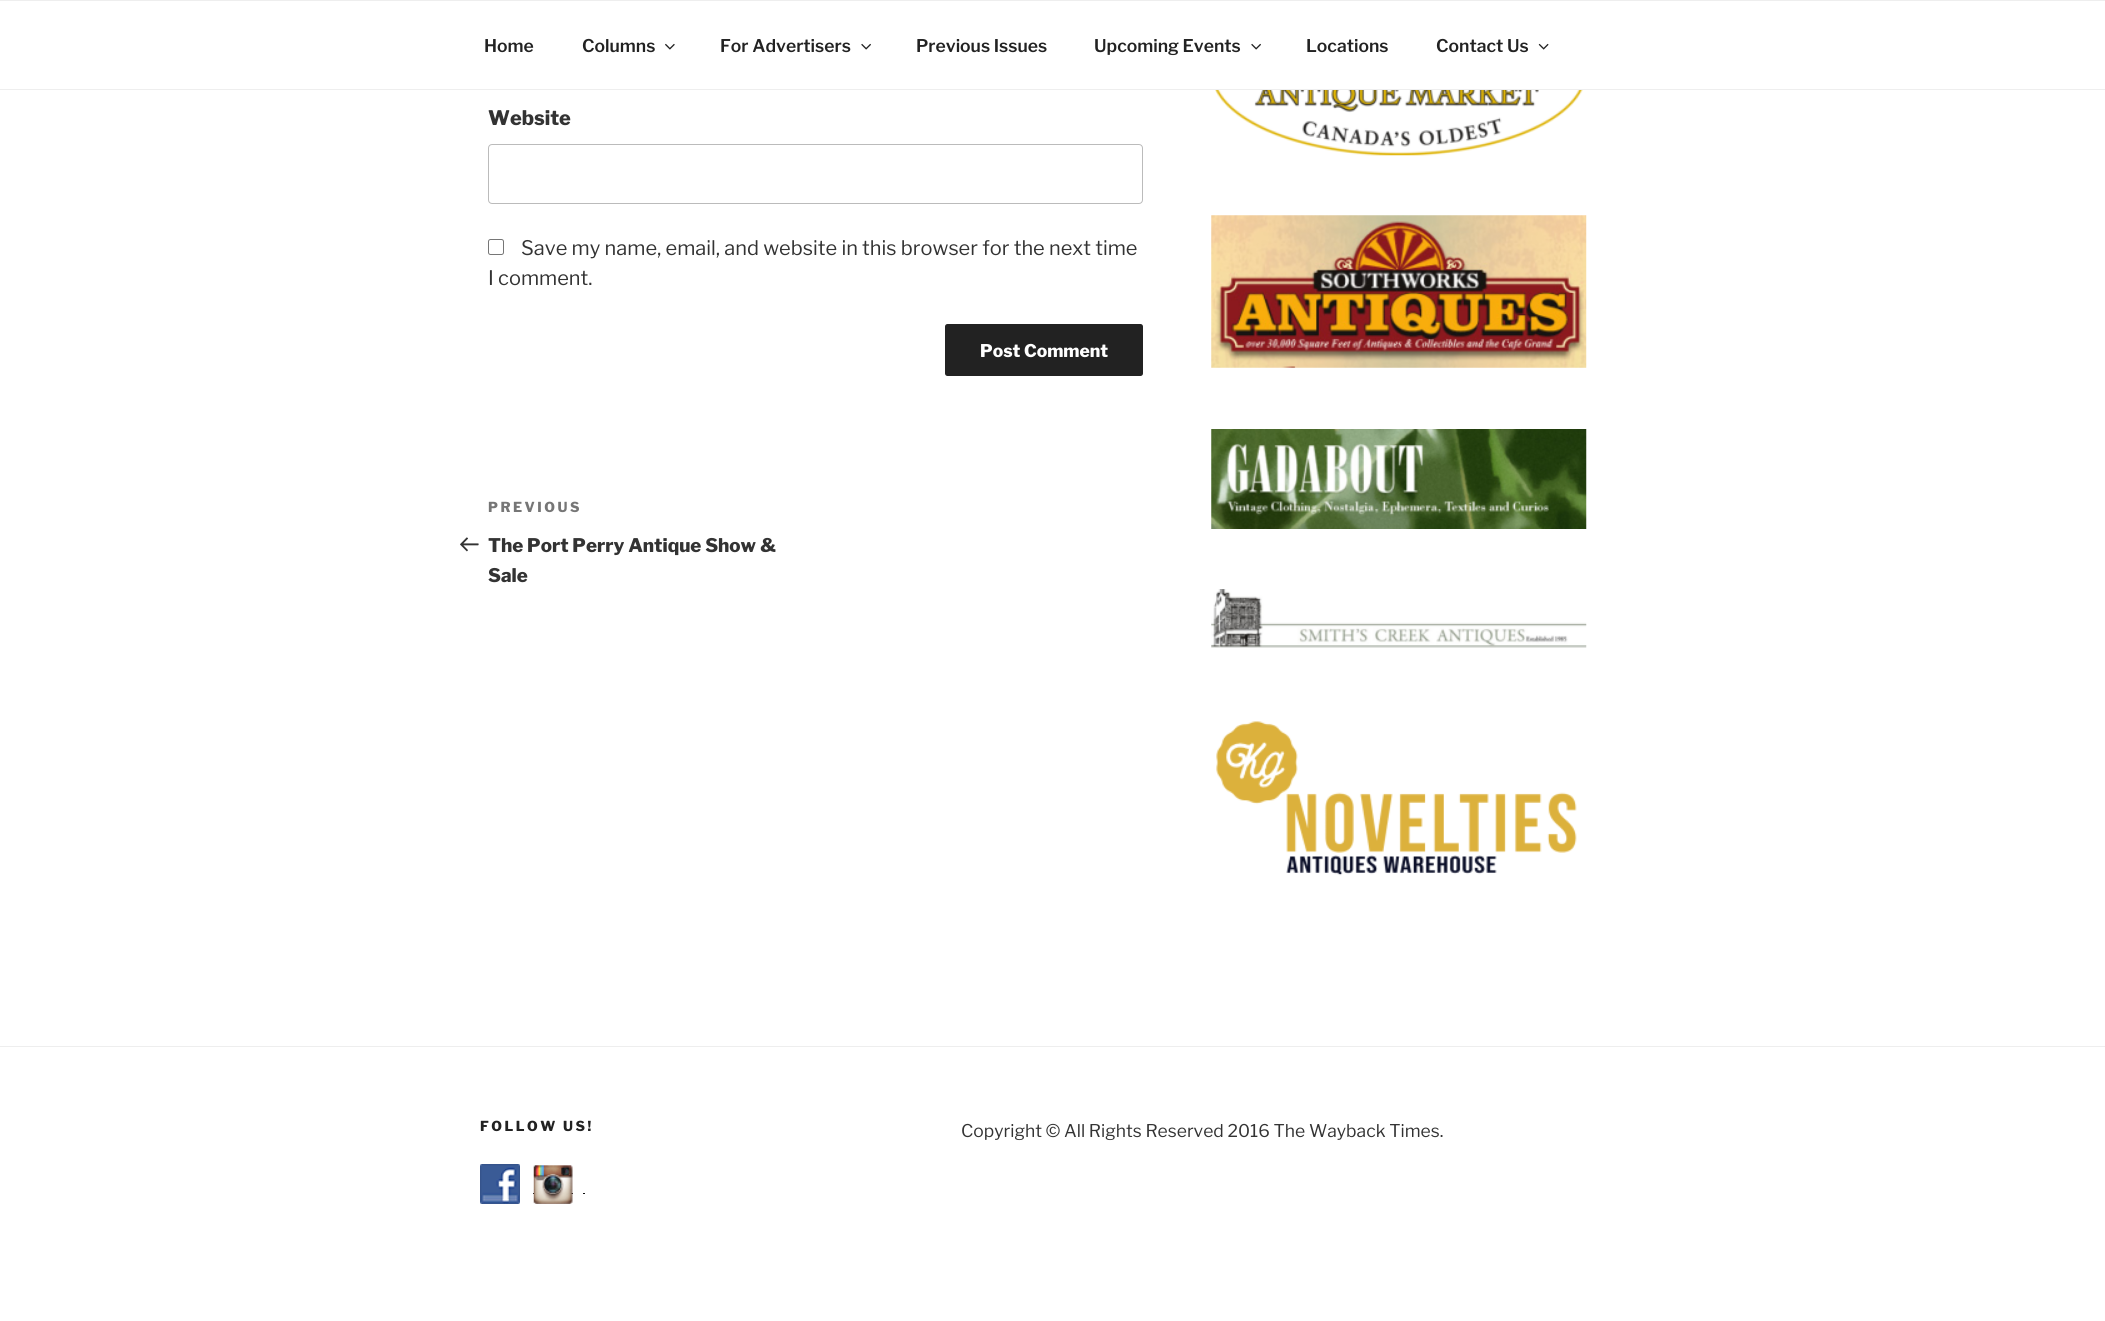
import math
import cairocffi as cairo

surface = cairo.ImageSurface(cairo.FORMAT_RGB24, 2105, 1321)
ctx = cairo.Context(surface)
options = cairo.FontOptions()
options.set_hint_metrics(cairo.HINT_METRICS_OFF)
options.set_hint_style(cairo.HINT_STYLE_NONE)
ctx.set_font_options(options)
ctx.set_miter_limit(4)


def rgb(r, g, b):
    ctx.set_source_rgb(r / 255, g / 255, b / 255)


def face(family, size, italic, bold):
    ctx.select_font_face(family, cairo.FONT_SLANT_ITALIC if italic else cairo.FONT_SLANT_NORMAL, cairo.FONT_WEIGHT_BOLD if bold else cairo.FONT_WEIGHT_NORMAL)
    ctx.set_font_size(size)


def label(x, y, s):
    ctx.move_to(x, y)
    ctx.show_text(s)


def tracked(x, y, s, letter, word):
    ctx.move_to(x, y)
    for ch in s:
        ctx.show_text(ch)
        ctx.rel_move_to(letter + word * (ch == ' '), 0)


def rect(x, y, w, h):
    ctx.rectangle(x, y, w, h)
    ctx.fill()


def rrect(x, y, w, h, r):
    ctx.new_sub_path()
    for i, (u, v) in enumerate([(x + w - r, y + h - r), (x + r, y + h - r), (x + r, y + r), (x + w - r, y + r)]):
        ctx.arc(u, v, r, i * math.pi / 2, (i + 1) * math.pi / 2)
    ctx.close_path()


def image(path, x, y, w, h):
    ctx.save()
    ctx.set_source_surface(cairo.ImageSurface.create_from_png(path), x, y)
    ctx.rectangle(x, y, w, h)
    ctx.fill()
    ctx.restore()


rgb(255, 255, 255)
ctx.paint()
rgb(238, 238, 238)
rect(0, 0, 2105, 1)
rect(0, 89, 2105, 1)
face('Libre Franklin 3 Thin', 17.5, 0, 0)
rgb(34, 34, 34)
label(484, 52, 'Home')
label(582, 52, 'Columns')
image('image0.png', 665, 43, 10, 7)
label(720, 52, 'For Advertisers')
image('image1.png', 861, 43, 10, 7)
label(916, 52, 'Previous Issues')
label(1094, 52, 'Upcoming Events')
image('image1.png', 1251, 43, 10, 7)
label(1306, 52, 'Locations')
label(1436, 52, 'Contact Us')
image('image2.png', 1538, 43, 11, 7)
face('Libre Franklin Thin', 20, 0, 0)
rgb(51, 51, 51)
label(488, 125, 'Website')
rrect(488.5, 144.5, 654, 59, 3.5)
rgb(187, 187, 187)
ctx.set_line_width(1)
ctx.stroke()
rrect(488.5, 239.5, 15, 15, 2)
rgb(118, 118, 118)
ctx.stroke()
face('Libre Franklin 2 Thin', 20, 0, 0)
rgb(51, 51, 51)
label(521, 255, 'Save my name, email, and website in this browser for the next time')
label(488, 285, 'I comment.')
rgb(34, 34, 34)
rrect(945, 324, 198, 52, 2.5)
ctx.fill()
face('Libre Franklin Thin', 17.5, 0, 0)
rgb(255, 255, 255)
label(980, 357, 'Post Comment')
face('Libre Franklin Thin', 13.75, 0, 0)
rgb(118, 118, 118)
tracked(488, 512, 'PREVIOUS', 2.5, 0)
image('image3.png', 460, 537, 19, 15)
face('Libre Franklin Thin', 18.75, 0, 0)
rgb(51, 51, 51)
label(488, 552, 'The Port Perry Antique Show &')
label(488, 582, 'Sale')
image('image4.png', 1215, 90, 368, 66)
image('image5.png', 1211, 215, 376, 153)
image('image6.png', 1211, 429, 376, 100)
image('image7.png', 1211, 589, 376, 59)
image('image8.png', 1216, 721, 361, 155)
rgb(238, 238, 238)
rect(0, 1046, 2105, 1)
face('Libre Franklin Thin', 13.75, 0, 0)
rgb(34, 34, 34)
tracked(480, 1131, 'FOLLOW US!', 2.5, 0)
image('image9.png', 480, 1164, 40, 40)
rgb(15, 15, 15)
rect(533, 1193, 52, 1)
ctx.rectangle(528, 1159, 50, 50)
rgb(255, 255, 255)
ctx.set_line_width(10)
ctx.stroke()
image('image10.png', 533, 1165, 40, 39)
face('Libre Franklin 2 Thin', 17.5, 0, 0)
rgb(51, 51, 51)
label(961, 1137, 'Copyright © All Rights Reserved 2016 The Wayback Times.')
surface.write_to_png('render.png')
